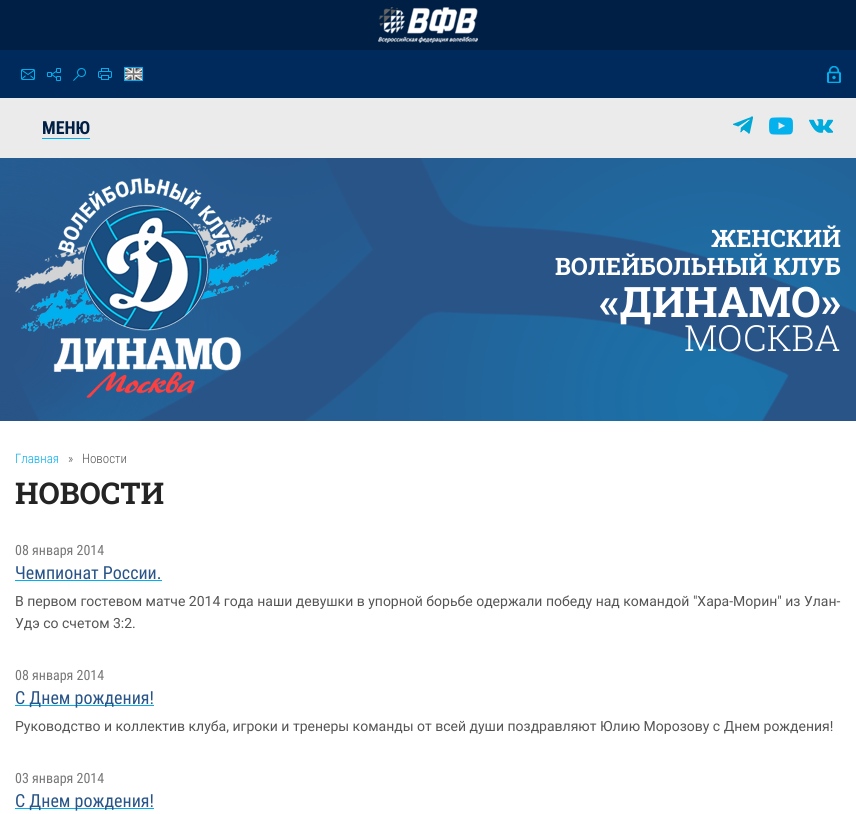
import math
import cairocffi as cairo

surface = cairo.ImageSurface(cairo.FORMAT_RGB24, 856, 814)
ctx = cairo.Context(surface)
options = cairo.FontOptions()
options.set_hint_metrics(cairo.HINT_METRICS_OFF)
options.set_hint_style(cairo.HINT_STYLE_NONE)
ctx.set_font_options(options)
ctx.set_miter_limit(4)


def rgb(r, g, b):
    ctx.set_source_rgb(r / 255, g / 255, b / 255)


def face(family, size, italic, bold):
    ctx.select_font_face(family, cairo.FONT_SLANT_ITALIC if italic else cairo.FONT_SLANT_NORMAL, cairo.FONT_WEIGHT_BOLD if bold else cairo.FONT_WEIGHT_NORMAL)
    ctx.set_font_size(size)


def label(x, y, s):
    ctx.move_to(x, y)
    ctx.show_text(s)


def rect(x, y, w, h):
    ctx.rectangle(x, y, w, h)
    ctx.fill()


def image(path, x, y, w, h):
    ctx.save()
    ctx.set_source_surface(cairo.ImageSurface.create_from_png(path), x, y)
    ctx.rectangle(x, y, w, h)
    ctx.fill()
    ctx.restore()


rgb(255, 255, 255)
ctx.paint()
rgb(0, 42, 92)
rect(0, 50, 856, 48)
rgb(0, 31, 68)
rect(0, 0, 856, 50)
image('image0.png', 378, 7, 100, 36)
image('image1.png', 21, 69, 14, 11)
image('image2.png', 47, 68, 14, 13)
image('image3.png', 73, 68, 13, 13)
image('image4.png', 98, 68, 14, 12)
ctx.rectangle(124.5, 67.5, 18, 13)
rgb(0, 175, 239)
ctx.set_line_width(1)
ctx.stroke()
image('image5.png', 125, 68, 17, 12)
image('image6.png', 827, 66, 14, 17)
rgb(235, 235, 235)
rect(0, 98, 856, 60)
image('image7.png', 733, 116, 20, 18)
image('image8.png', 769, 117, 24, 18)
image('image9.png', 809, 119, 24, 14)
rgb(0, 175, 239)
rect(42, 138, 48, 1)
face('Roboto Condensed', 18, 0, 1)
rgb(0, 31, 68)
label(42, 134, 'МЕНЮ')
rgb(41, 84, 136)
rect(0, 158, 856, 263)
image('image10.png', 0, 158, 856, 263)
image('image11.png', 15, 178, 264, 220)
face('Roboto Slab', 24, 0, 1)
rgb(255, 255, 255)
label(711, 247, 'ЖЕНСКИЙ')
label(555, 275, 'ВОЛЕЙБОЛЬНЫЙ КЛУБ')
face('Roboto Slab', 42, 0, 1)
label(600, 317, '«ДИНАМО»')
face('Roboto Slab Light', 36, 0, 0)
label(684, 351, 'МОСКВА')
face('Roboto Condensed Light', 13, 0, 0)
rgb(0, 176, 238)
label(15, 463, 'Главная')
rgb(85, 85, 85)
label(68, 463, '»')
label(82, 463, 'Новости')
face('Roboto Slab', 30, 0, 1)
rgb(36, 36, 36)
label(15, 504, 'НОВОСТИ')
face('Roboto Condensed', 14, 0, 0)
rgb(119, 119, 119)
label(15, 555, '08 января 2014')
face('Roboto Condensed', 18, 0, 0)
rgb(41, 84, 136)
label(15, 579, 'Чемпионат России.')
rgb(0, 175, 239)
rect(15, 580, 147, 1)
face('Roboto', 14, 0, 0)
rgb(85, 85, 85)
label(15, 606, 'В первом гостевом матче 2014 года наши девушки в упорной борьбе одержали победу над командой "Хара-Морин" из Улан-')
label(15, 628, 'Удэ со счетом 3:2.')
face('Roboto Condensed', 14, 0, 0)
rgb(119, 119, 119)
label(15, 680, '08 января 2014')
rgb(0, 175, 239)
rect(15, 705, 139, 1)
face('Roboto Condensed', 18, 0, 0)
rgb(41, 84, 136)
label(15, 704, 'С Днем рождения!')
face('Roboto', 14, 0, 0)
rgb(85, 85, 85)
label(15, 731, 'Руководство и коллектив клуба, игроки и тренеры команды от всей души поздравляют Юлию Морозову с Днем рождения!')
face('Roboto Condensed', 14, 0, 0)
rgb(119, 119, 119)
label(15, 783, '03 января 2014')
rgb(0, 175, 239)
rect(15, 808, 139, 1)
face('Roboto Condensed', 18, 0, 0)
rgb(41, 84, 136)
label(15, 807, 'С Днем рождения!')
surface.write_to_png('render.png')
